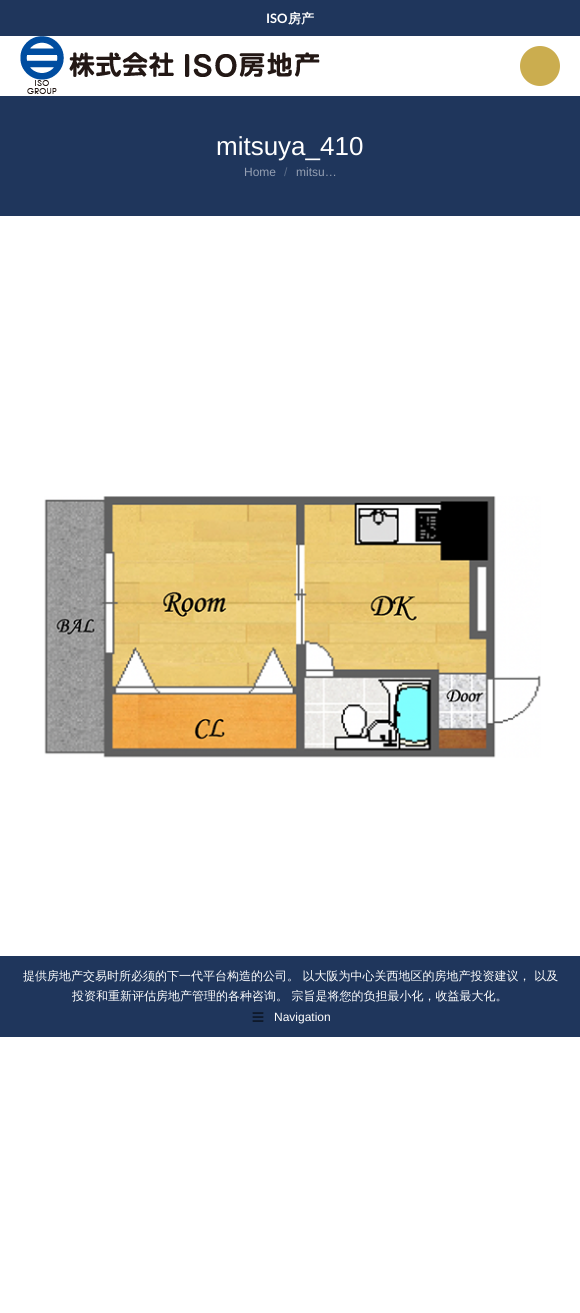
import math
import cairocffi as cairo

surface = cairo.ImageSurface(cairo.FORMAT_RGB24, 580, 1313)
ctx = cairo.Context(surface)
options = cairo.FontOptions()
options.set_hint_metrics(cairo.HINT_METRICS_OFF)
options.set_hint_style(cairo.HINT_STYLE_NONE)
ctx.set_font_options(options)
ctx.set_miter_limit(4)


def rgb(r, g, b):
    ctx.set_source_rgb(r / 255, g / 255, b / 255)


def face(family, size, italic, bold):
    ctx.select_font_face(family, cairo.FONT_SLANT_ITALIC if italic else cairo.FONT_SLANT_NORMAL, cairo.FONT_WEIGHT_BOLD if bold else cairo.FONT_WEIGHT_NORMAL)
    ctx.set_font_size(size)


def label(x, y, s):
    ctx.move_to(x, y)
    ctx.show_text(s)


def rect(x, y, w, h):
    ctx.rectangle(x, y, w, h)
    ctx.fill()


def image(path, x, y, w, h):
    ctx.save()
    ctx.set_source_surface(cairo.ImageSurface.create_from_png(path), x, y)
    ctx.rectangle(x, y, w, h)
    ctx.fill()
    ctx.restore()


rgb(255, 255, 255)
ctx.paint()
rgb(31, 54, 92)
rect(0, 0, 580, 36)
face('Lato', 13, 0, 1)
rgb(255, 255, 255)
label(266, 23, 'ISO')
face('WenQuanYi Zen Hei', 13, 0, 1)
label(288, 23, '房产')
image('image0.png', 20, 36, 300, 58)
rgb(203, 173, 79)
ctx.arc(540, 66, 20, 0, 2 * math.pi)
ctx.fill()
rgb(31, 54, 92)
rect(0, 96, 580, 120)
face('Liberation Sans', 26, 0, 0)
rgb(255, 255, 255)
label(216, 155, 'mitsuya_410')
face('Liberation Sans', 12, 0, 0)
rgb(148, 159, 178)
label(244, 176, 'Home')
rgb(90, 107, 135)
label(284, 176, '/')
rgb(148, 159, 178)
label(296, 176, 'mitsu…')
image('image1.png', 44, 496, 497, 262)
rgb(31, 54, 92)
rect(0, 956, 580, 81)
face('WenQuanYi Zen Hei Medium', 12, 0, 0)
rgb(255, 255, 255)
label(23, 980, '提供房地产交易时所必须的下一代平台构造的公司。 以大阪为中心关西地区的房地产投资建议， 以及')
label(72, 1000, '投资和重新评估房地产管理的各种咨询。 宗旨是将您的负担最小化，收益最大化。')
image('image2.png', 252, 1012, 12, 10)
face('Liberation Sans', 12, 0, 0)
label(274, 1021, 'Navigation')
surface.write_to_png('render.png')
